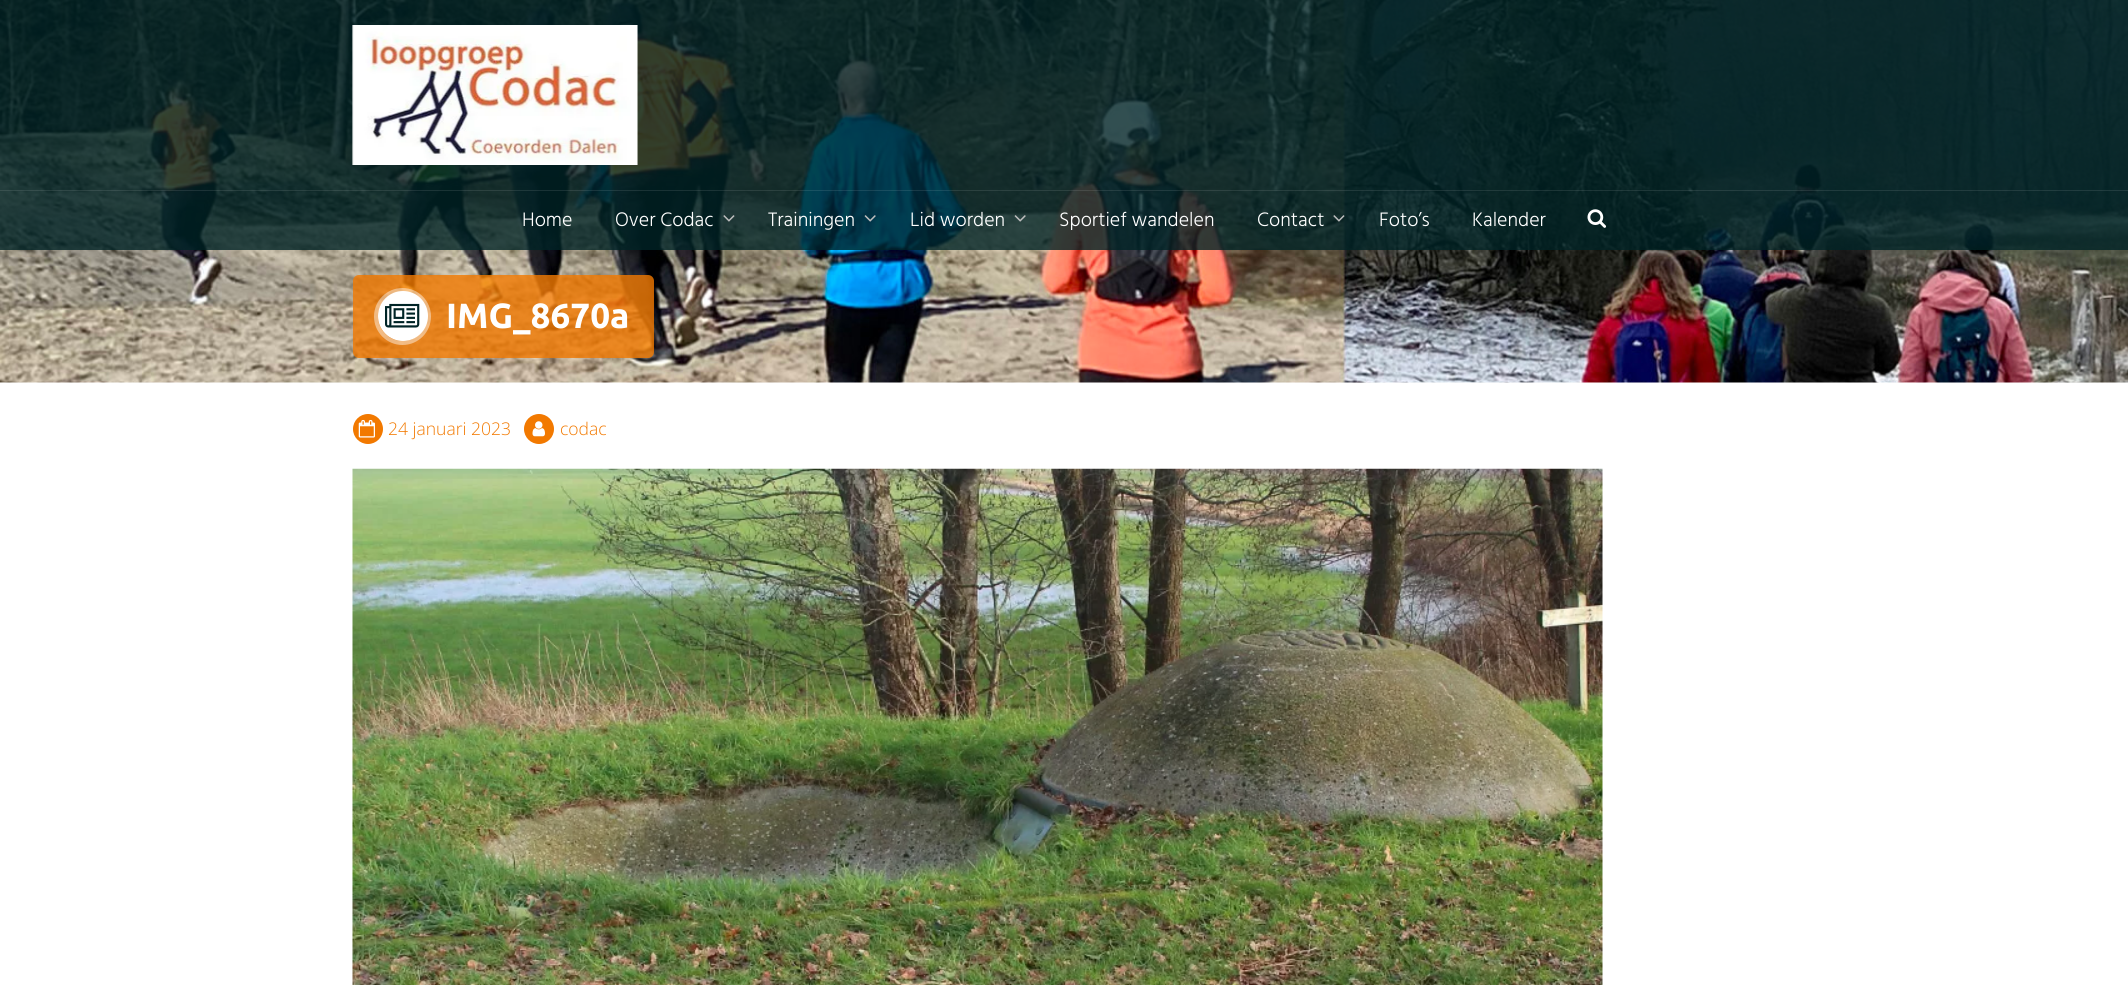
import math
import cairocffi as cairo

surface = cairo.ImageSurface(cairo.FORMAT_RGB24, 2128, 985)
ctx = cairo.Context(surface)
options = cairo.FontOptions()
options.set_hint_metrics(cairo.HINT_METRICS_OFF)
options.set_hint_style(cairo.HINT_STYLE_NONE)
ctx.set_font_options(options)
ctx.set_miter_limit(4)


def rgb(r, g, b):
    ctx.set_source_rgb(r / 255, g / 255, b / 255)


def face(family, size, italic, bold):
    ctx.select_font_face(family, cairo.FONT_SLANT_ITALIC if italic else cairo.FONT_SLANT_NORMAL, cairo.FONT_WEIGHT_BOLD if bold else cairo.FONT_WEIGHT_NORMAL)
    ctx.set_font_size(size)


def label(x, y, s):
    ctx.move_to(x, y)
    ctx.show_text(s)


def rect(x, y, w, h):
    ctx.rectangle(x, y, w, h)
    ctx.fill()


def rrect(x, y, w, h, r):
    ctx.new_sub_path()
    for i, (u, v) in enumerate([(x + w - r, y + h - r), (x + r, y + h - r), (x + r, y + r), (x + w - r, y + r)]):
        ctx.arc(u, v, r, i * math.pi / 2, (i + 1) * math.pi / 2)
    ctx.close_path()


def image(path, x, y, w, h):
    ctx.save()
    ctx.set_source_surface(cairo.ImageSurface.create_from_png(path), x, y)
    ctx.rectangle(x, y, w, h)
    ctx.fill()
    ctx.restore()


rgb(255, 255, 255)
ctx.paint()
image('image6.png', 0, 0, 2128, 383)
ctx.set_source_rgba(0, 0.141, 0.149, 0.8)
rect(0, 0, 2128, 250)
image('image0.png', 352, 25, 286, 140)
ctx.set_source_rgba(1, 1, 1, 0.1)
rect(0, 190, 2128, 1)
face('Hind Light', 20, 0, 0)
rgb(255, 255, 255)
label(522, 226, 'Home')
label(615, 226, 'Over Codac')
image('image1.png', 723, 215, 12, 7)
label(768, 226, 'Trainingen')
image('image2.png', 864, 215, 12, 7)
label(910, 226, 'Lid worden')
image('image3.png', 1014, 215, 12, 7)
label(1059, 226, 'Sportief wandelen')
label(1257, 226, 'Contact')
image('image4.png', 1333, 215, 12, 7)
label(1379, 226, 'Foto’s')
label(1472, 226, 'Kalender')
image('image5.png', 1587, 209, 20, 19)
ctx.set_source_rgba(0.949, 0.475, 0, 0.8)
rrect(353, 275, 301, 83, 6)
ctx.fill()
ctx.arc(402.5, 316.5, 26.5, 0, 2 * math.pi)
ctx.set_source_rgba(1, 1, 1, 0.45)
ctx.set_line_width(4)
ctx.stroke()
rgb(255, 255, 255)
ctx.arc(403, 316, 25, 0, 2 * math.pi)
ctx.fill()
image('image7.png', 385, 303, 35, 25)
face('Ubuntu', 35, 0, 1)
label(446, 328, 'IMG_8670a')
rgb(242, 121, 0)
ctx.new_path()
ctx.arc(368, 429, 15, 0, 2 * math.pi)
ctx.fill()
image('image8.png', 358, 420, 17, 18)
face('Open Sans Light', 17.5, 0, 0)
label(388, 435, '24 januari 2023')
ctx.new_path()
ctx.arc(539, 429, 15, 0, 2 * math.pi)
ctx.fill()
image('image9.png', 532, 421, 13, 16)
label(560, 435, 'codac')
image('image10.png', 352, 468, 1251, 517)
surface.write_to_png('render.png')
